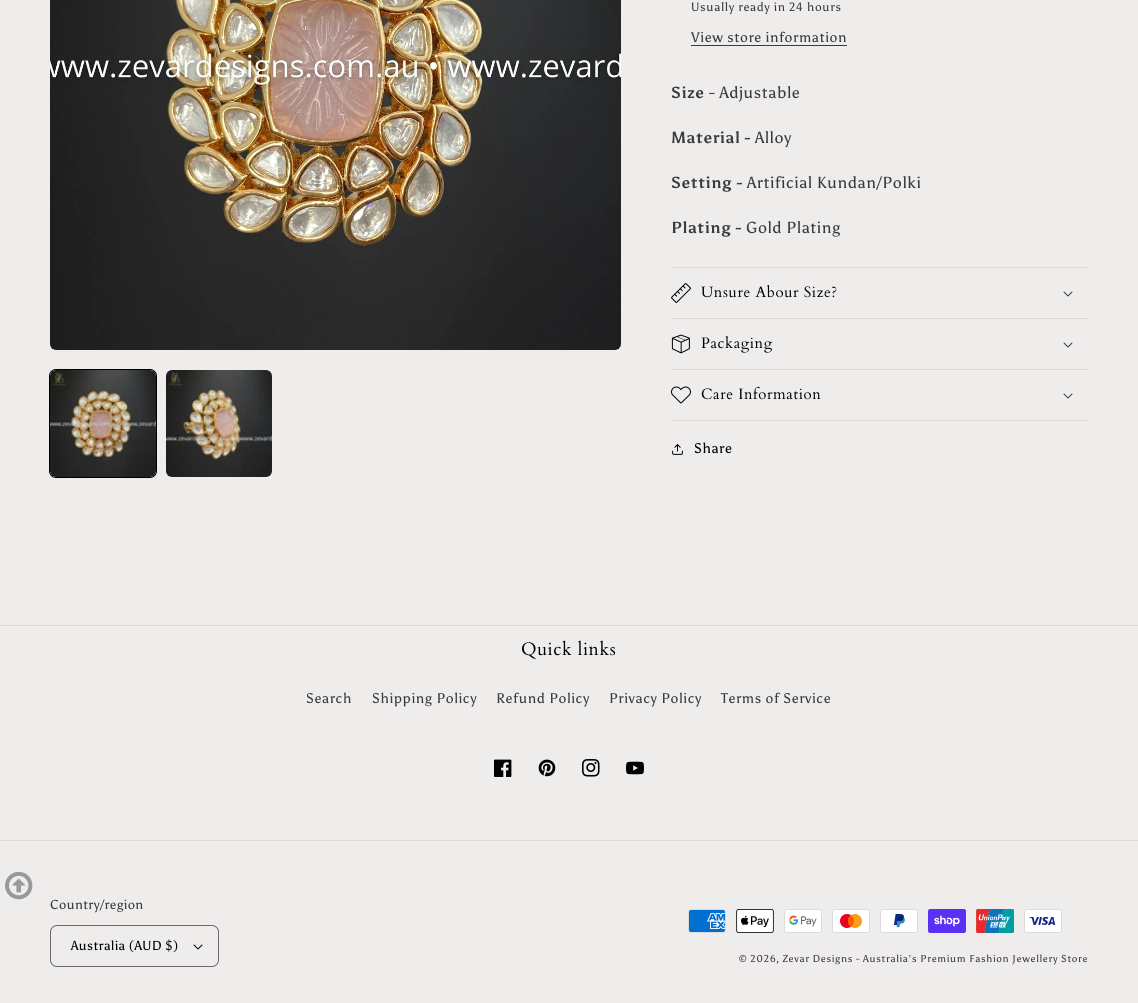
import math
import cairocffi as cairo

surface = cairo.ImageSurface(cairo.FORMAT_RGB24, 1138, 1003)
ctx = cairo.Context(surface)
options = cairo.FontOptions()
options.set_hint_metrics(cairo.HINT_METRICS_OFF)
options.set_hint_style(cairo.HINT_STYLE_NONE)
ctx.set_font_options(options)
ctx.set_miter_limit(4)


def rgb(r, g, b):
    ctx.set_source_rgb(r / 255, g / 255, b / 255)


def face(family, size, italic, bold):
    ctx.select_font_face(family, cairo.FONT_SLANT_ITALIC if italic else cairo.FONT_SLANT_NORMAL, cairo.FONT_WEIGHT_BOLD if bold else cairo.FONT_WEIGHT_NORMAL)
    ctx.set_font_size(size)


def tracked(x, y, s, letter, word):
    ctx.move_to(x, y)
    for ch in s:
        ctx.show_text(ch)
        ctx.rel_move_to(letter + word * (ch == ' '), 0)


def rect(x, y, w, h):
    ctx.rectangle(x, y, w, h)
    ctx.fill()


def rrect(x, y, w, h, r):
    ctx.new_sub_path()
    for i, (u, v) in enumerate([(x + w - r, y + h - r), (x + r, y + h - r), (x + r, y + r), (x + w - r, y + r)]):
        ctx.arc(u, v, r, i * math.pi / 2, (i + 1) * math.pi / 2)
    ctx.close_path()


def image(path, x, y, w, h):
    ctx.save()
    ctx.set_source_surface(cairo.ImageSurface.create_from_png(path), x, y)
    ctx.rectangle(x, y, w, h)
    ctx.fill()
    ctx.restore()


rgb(239, 236, 236)
ctx.paint()
image('image0.png', 50, 0, 571, 350)
rrect(49.5, 369.5, 107, 108, 6.5)
rgb(0, 0, 0)
ctx.set_line_width(1)
ctx.stroke()
image('image1.png', 50, 370, 106, 107)
image('image2.png', 166, 370, 106, 107)
face('Asul', 12, 0, 0)
rgb(60, 59, 59)
tracked(691, 11, 'Usually ready in 24 hours', 0.7, 0)
face('Asul', 14, 0, 0)
tracked(691, 42, 'View store information', 0.6, 0)
rect(691, 45, 156, 1)
face('Asul', 16, 0, 1)
tracked(671, 98, 'Size', 0.6, 0)
face('Asul', 16, 0, 0)
tracked(709, 98, '- Adjustable', 0.6, 0)
face('Asul', 16, 0, 1)
tracked(671, 143, 'Material -', 0.6, 0)
face('Asul', 16, 0, 0)
tracked(755, 143, 'Alloy', 0.6, 0)
face('Asul', 16, 0, 1)
tracked(671, 188, 'Setting -', 0.6, 0)
face('Asul', 16, 0, 0)
tracked(747, 188, 'Artificial Kundan/Polki', 0.6, 0)
face('Asul', 16, 0, 1)
tracked(671, 233, 'Plating -', 0.6, 0)
face('Asul', 16, 0, 0)
tracked(746, 233, 'Gold Plating', 0.6, 0)
rgb(220, 217, 217)
rect(671, 267, 417, 1)
rect(671, 318, 417, 1)
image('image3.png', 671, 283, 20, 20)
face('Cardo', 15, 0, 0)
rgb(0, 0, 0)
tracked(701, 297, 'Unsure Abour Size?', 0.6, 0)
image('image4.png', 1063, 291, 10, 6)
rgb(220, 217, 217)
rect(671, 369, 417, 1)
image('image5.png', 671, 334, 19, 20)
rgb(0, 0, 0)
tracked(701, 348, 'Packaging', 0.6, 0)
image('image4.png', 1063, 342, 10, 6)
rgb(220, 217, 217)
rect(671, 420, 417, 1)
image('image6.png', 671, 386, 20, 18)
rgb(0, 0, 0)
tracked(701, 399, 'Care Information', 0.6, 0)
image('image4.png', 1063, 393, 10, 6)
image('image7.png', 672, 444, 11, 11)
face('Asul', 14, 0, 0)
tracked(694, 453, 'Share', 0.6, 0)
image('image8.png', 5, 871, 28, 29)
rgb(220, 217, 217)
rect(0, 625, 1138, 1)
face('Cardo', 18, 0, 0)
rgb(0, 0, 0)
tracked(521, 655, 'Quick links', 0.6, 0)
face('Asul', 14, 0, 0)
rgb(60, 59, 59)
tracked(306, 703, 'Search', 0.6, 0)
tracked(372, 703, 'Shipping Policy', 0.6, 0)
tracked(496, 703, 'Refund Policy', 0.6, 0)
tracked(609, 703, 'Privacy Policy', 0.6, 0)
tracked(721, 703, 'Terms of Service', 0.6, 0)
image('image9.png', 494, 759, 18, 18)
image('image10.png', 538, 759, 18, 18)
image('image11.png', 582, 759, 18, 18)
image('image12.png', 626, 761, 18, 14)
rgb(220, 217, 217)
rect(0, 840, 1138, 1)
face('Asul', 13, 0, 0)
rgb(60, 59, 59)
tracked(50, 909, 'Country/region', 0.4, 0)
image('image13.png', 193, 944, 10, 6)
rrect(50.5, 925.5, 168, 41, 6.5)
rgb(108, 106, 106)
ctx.stroke()
rgb(0, 0, 0)
tracked(71, 950, 'Australia (AUD $)', 0.4, 0)
image('image14.png', 688, 909, 38, 24)
image('image15.png', 736, 909, 38, 24)
image('image16.png', 784, 909, 38, 24)
image('image17.png', 832, 909, 38, 24)
image('image18.png', 880, 909, 38, 24)
image('image19.png', 928, 909, 38, 24)
image('image20.png', 976, 909, 38, 24)
image('image21.png', 1024, 909, 38, 24)
face('Asul', 10, 0, 0)
rgb(60, 59, 59)
tracked(739, 962, '© 2026, Zevar Designs - Australia’s Premium Fashion Jewellery Store', 0.7, 0)
surface.write_to_png('render.png')
